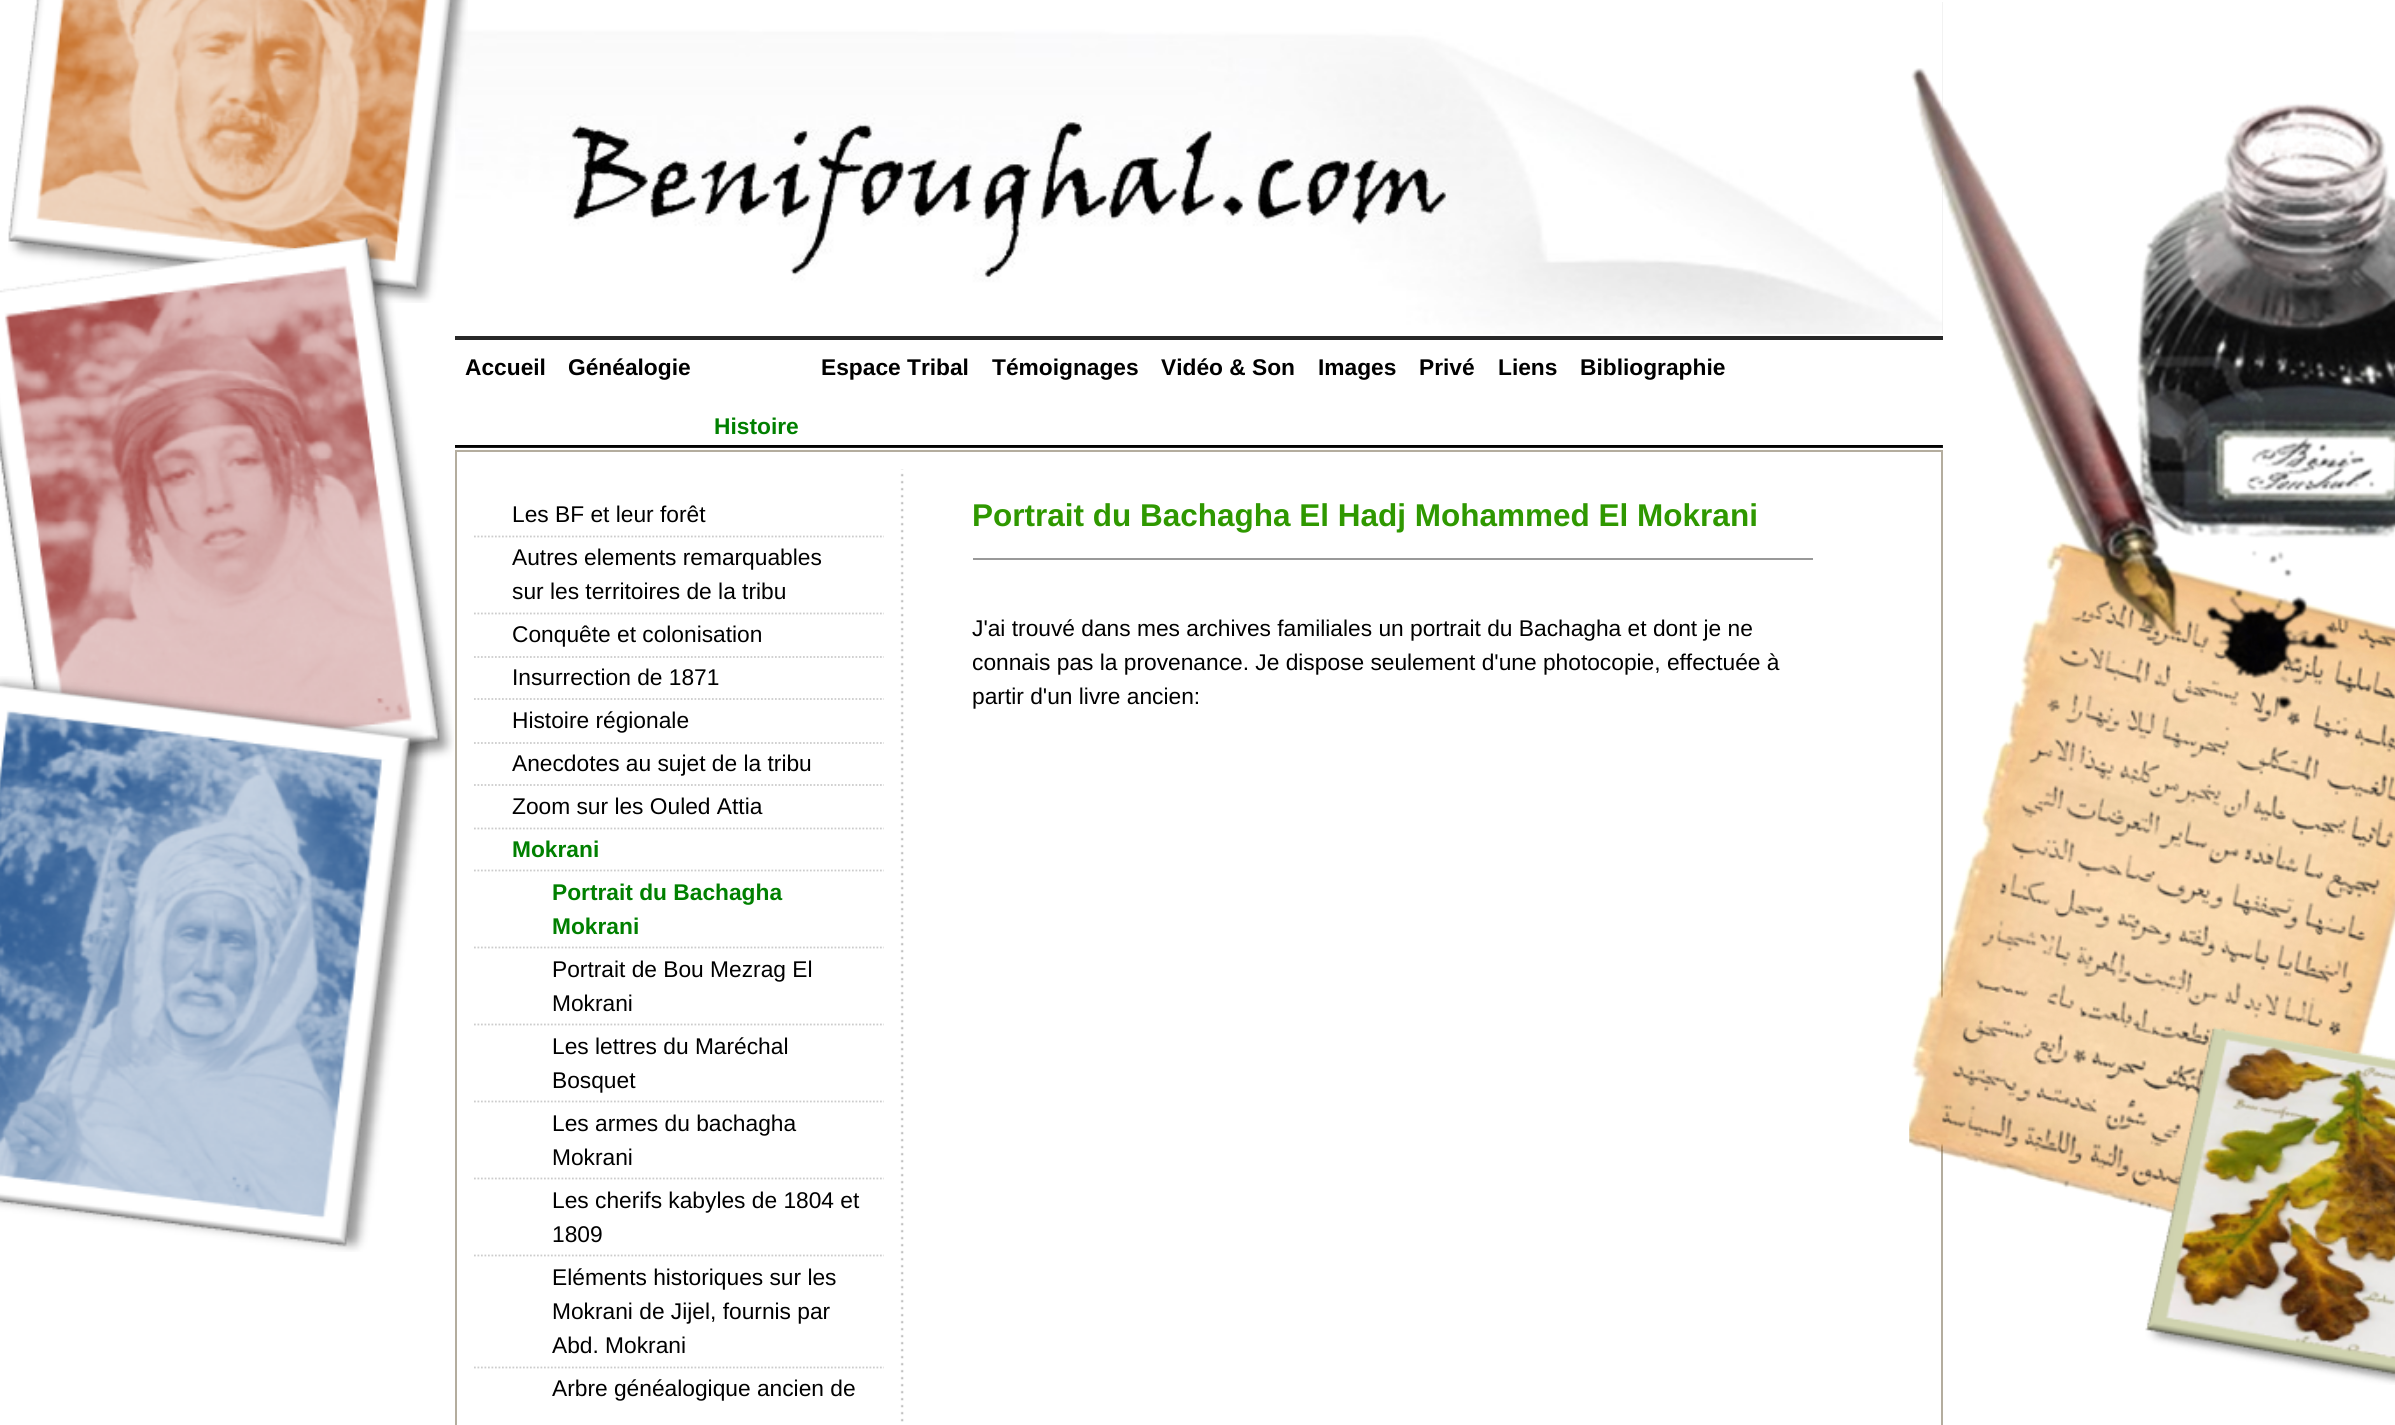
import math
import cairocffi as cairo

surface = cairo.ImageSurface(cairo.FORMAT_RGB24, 2395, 1425)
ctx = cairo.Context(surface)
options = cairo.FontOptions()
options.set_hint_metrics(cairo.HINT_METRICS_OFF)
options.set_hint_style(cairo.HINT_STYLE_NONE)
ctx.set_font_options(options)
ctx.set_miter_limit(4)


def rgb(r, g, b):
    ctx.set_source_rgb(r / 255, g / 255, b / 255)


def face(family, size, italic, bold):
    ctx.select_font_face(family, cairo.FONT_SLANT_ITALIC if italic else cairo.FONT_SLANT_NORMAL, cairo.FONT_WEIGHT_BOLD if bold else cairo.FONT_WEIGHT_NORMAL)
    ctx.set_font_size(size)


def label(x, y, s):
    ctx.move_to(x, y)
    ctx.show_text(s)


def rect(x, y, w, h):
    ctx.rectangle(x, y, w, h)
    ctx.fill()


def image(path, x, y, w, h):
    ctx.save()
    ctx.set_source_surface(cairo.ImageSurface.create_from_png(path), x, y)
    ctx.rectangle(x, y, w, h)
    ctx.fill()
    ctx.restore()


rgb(255, 255, 255)
ctx.paint()
rgb(238, 238, 238)
rect(1942, 2, 1, 332)
image('image0.png', 455, 2, 1488, 332)
rgb(40, 40, 40)
rect(455, 336, 1488, 112)
image('image1.png', 455, 445, 1488, 3)
rgb(255, 255, 255)
rect(455, 340, 1488, 105)
face('Liberation Sans', 22.75, 0, 1)
rgb(0, 0, 0)
label(465, 375, 'Accueil')
label(568, 375, 'Généalogie')
label(821, 375, 'Espace Tribal')
label(992, 375, 'Témoignages')
label(1161, 375, 'Vidéo & Son')
label(1318, 375, 'Images')
label(1419, 375, 'Privé')
label(1498, 375, 'Liens')
label(1580, 375, 'Bibliographie')
rgb(0, 128, 0)
label(714, 434, 'Histoire')
ctx.rectangle(456, 451, 1486, 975)
rgb(180, 173, 158)
ctx.stroke()
image('image2.png', 8, 0, 460, 303)
image('image5.png', 1909, 541, 486, 674)
image('image3.png', 1911, 68, 484, 642)
image('image4.png', 0, 237, 454, 525)
image('image6.png', 0, 676, 428, 576)
image('image7.png', 2145, 1027, 250, 358)
ctx.new_path()
ctx.move_to(474, 536.5)
ctx.line_to(884, 536.5)
rgb(204, 204, 204)
ctx.set_line_width(1.8)
ctx.set_dash([1.75, 1.75])
ctx.stroke()
face('Liberation Sans', 22.75, 0, 0)
rgb(0, 0, 0)
label(512, 522, 'Les BF et leur forêt')
ctx.new_path()
ctx.move_to(474, 613.5)
ctx.line_to(884, 613.5)
rgb(204, 204, 204)
ctx.stroke()
rgb(0, 0, 0)
label(512, 565, 'Autres elements remarquables')
label(512, 599, 'sur les territoires de la tribu')
ctx.new_path()
ctx.move_to(474, 657)
ctx.line_to(884, 657)
rgb(204, 204, 204)
ctx.stroke()
rgb(0, 0, 0)
label(512, 642, 'Conquête et colonisation')
ctx.new_path()
ctx.move_to(474, 699)
ctx.line_to(884, 699)
rgb(204, 204, 204)
ctx.stroke()
rgb(0, 0, 0)
label(512, 685, 'Insurrection de 1871')
ctx.new_path()
ctx.move_to(474, 743)
ctx.line_to(884, 743)
rgb(204, 204, 204)
ctx.stroke()
rgb(0, 0, 0)
label(512, 728, 'Histoire régionale')
ctx.new_path()
ctx.move_to(474, 785)
ctx.line_to(884, 785)
rgb(204, 204, 204)
ctx.stroke()
rgb(0, 0, 0)
label(512, 771, 'Anecdotes au sujet de la tribu')
ctx.new_path()
ctx.move_to(474, 828.5)
ctx.line_to(884, 828.5)
rgb(204, 204, 204)
ctx.stroke()
rgb(0, 0, 0)
label(512, 814, 'Zoom sur les Ouled Attia')
ctx.new_path()
ctx.move_to(474, 870.5)
ctx.line_to(884, 870.5)
rgb(204, 204, 204)
ctx.stroke()
face('Liberation Sans', 22.75, 0, 1)
rgb(0, 128, 0)
label(512, 857, 'Mokrani')
ctx.new_path()
ctx.move_to(474, 947.5)
ctx.line_to(884, 947.5)
rgb(204, 204, 204)
ctx.stroke()
rgb(0, 128, 0)
label(552, 900, 'Portrait du Bachagha')
label(552, 934, 'Mokrani')
ctx.new_path()
ctx.move_to(474, 1024.5)
ctx.line_to(884, 1024.5)
rgb(204, 204, 204)
ctx.stroke()
face('Liberation Sans', 22.75, 0, 0)
rgb(0, 0, 0)
label(552, 977, 'Portrait de Bou Mezrag El')
label(552, 1011, 'Mokrani')
ctx.new_path()
ctx.move_to(474, 1101.5)
ctx.line_to(884, 1101.5)
rgb(204, 204, 204)
ctx.stroke()
rgb(0, 0, 0)
label(552, 1054, 'Les lettres du Maréchal')
label(552, 1088, 'Bosquet')
ctx.new_path()
ctx.move_to(474, 1178.5)
ctx.line_to(884, 1178.5)
rgb(204, 204, 204)
ctx.stroke()
rgb(0, 0, 0)
label(552, 1131, 'Les armes du bachagha')
label(552, 1165, 'Mokrani')
ctx.new_path()
ctx.move_to(474, 1255.5)
ctx.line_to(884, 1255.5)
rgb(204, 204, 204)
ctx.stroke()
rgb(0, 0, 0)
label(552, 1208, 'Les cherifs kabyles de 1804 et')
label(552, 1242, '1809')
ctx.new_path()
ctx.move_to(474, 1367.5)
ctx.line_to(884, 1367.5)
rgb(204, 204, 204)
ctx.stroke()
rgb(0, 0, 0)
label(552, 1285, 'Eléments historiques sur les')
label(552, 1319, 'Mokrani de Jijel, fournis par')
label(552, 1353, 'Abd. Mokrani')
label(552, 1396, 'Arbre généalogique ancien de')
image('image8.png', 900, 469, 4, 953)
face('Liberation Sans', 31.5, 0, 1)
rgb(47, 152, 0)
label(972, 526, 'Portrait du Bachagha El Hadj Mohammed El Mokrani')
rgb(153, 153, 153)
rect(973, 558, 840, 2)
face('Liberation Sans', 22.75, 0, 0)
rgb(0, 0, 0)
label(972, 636, 'J\'ai trouvé dans mes archives familiales un portrait du Bachagha et dont je ne')
label(972, 670, 'connais pas la provenance. Je dispose seulement d\'une photocopie, effectuée à')
label(972, 704, 'partir d\'un livre ancien:')
surface.write_to_png('render.png')
